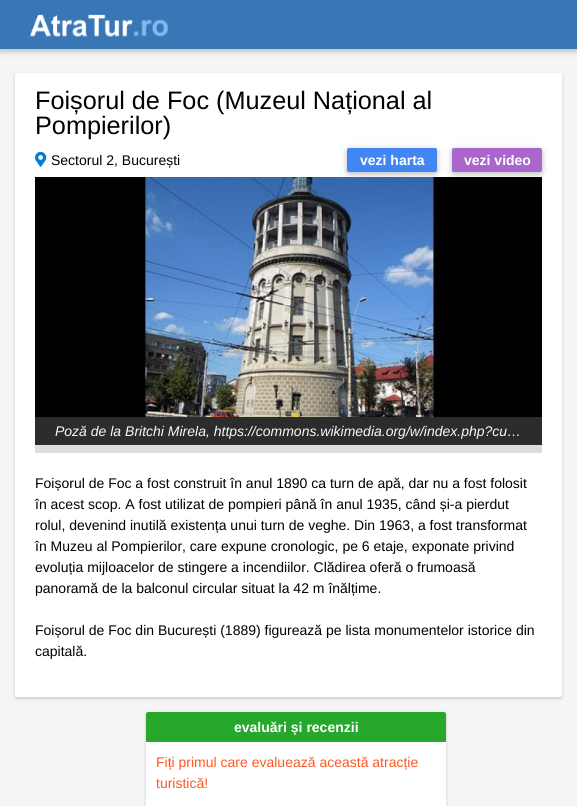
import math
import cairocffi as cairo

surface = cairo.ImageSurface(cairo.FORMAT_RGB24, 577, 806)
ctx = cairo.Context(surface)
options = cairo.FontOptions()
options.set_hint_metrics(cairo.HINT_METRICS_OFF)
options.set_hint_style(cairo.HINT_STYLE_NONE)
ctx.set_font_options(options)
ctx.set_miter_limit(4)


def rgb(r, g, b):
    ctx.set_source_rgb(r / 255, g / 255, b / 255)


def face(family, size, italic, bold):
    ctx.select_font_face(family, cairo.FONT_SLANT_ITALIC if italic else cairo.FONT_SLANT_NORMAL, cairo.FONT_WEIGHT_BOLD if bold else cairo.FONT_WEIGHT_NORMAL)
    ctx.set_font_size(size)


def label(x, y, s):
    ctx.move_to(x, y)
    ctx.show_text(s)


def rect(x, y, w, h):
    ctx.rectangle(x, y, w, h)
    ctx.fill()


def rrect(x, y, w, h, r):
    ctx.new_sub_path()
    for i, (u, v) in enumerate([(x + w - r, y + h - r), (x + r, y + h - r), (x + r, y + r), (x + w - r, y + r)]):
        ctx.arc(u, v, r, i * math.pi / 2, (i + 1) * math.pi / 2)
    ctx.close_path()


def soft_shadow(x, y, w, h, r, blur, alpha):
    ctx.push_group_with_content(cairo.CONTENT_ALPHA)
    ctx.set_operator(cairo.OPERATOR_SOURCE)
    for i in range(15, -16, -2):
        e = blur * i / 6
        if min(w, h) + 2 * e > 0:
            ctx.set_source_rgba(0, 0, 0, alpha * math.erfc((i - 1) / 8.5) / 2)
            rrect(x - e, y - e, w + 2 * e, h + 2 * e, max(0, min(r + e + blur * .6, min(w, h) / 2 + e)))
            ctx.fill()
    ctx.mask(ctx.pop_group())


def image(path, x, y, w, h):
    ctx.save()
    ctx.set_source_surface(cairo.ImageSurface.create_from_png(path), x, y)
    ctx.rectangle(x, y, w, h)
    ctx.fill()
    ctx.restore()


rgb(245, 245, 245)
ctx.paint()
rgb(0, 0, 0)
soft_shadow(0, 2, 577, 49, 0, 5, 0.12)
soft_shadow(0, 2, 577, 49, 0, 2.5, 0.16)
rgb(57, 118, 181)
rect(0, 0, 577, 49)
image('image0.png', 30, 14, 139, 23)
rgb(0, 0, 0)
soft_shadow(15, 74, 547, 624, 2, 2.5, 0.08)
soft_shadow(15, 75, 547, 624, 2, 1, 0.1)
rgb(255, 255, 255)
rrect(15, 73, 547, 624, 2)
ctx.fill()
face('Liberation Sans', 25.25, 0, 0)
rgb(0, 0, 0)
label(35, 109, 'Foișorul de Foc (Muzeul Național al')
label(35, 134, 'Pompierilor)')
image('image1.png', 35, 151, 12, 16)
face('Liberation Sans', 14, 0, 0)
label(51, 165, 'Sectorul 2, București')
rgb(0, 0, 0)
soft_shadow(347, 150, 90, 24, 2, 5, 0.12)
soft_shadow(347, 150, 90, 24, 2, 2.5, 0.16)
rgb(66, 133, 244)
rrect(347, 148, 90, 24, 2)
ctx.fill()
face('Liberation Sans', 14, 0, 1)
rgb(255, 255, 255)
label(360, 165, 'vezi harta')
rgb(0, 0, 0)
soft_shadow(452, 150, 90, 24, 2, 5, 0.12)
soft_shadow(452, 150, 90, 24, 2, 2.5, 0.16)
rgb(170, 102, 204)
rrect(452, 148, 90, 24, 2)
ctx.fill()
rgb(255, 255, 255)
label(464, 165, 'vezi video')
rgb(221, 221, 221)
rect(35, 445, 507, 8)
image('image2.png', 35, 177, 507, 240)
rgb(44, 44, 44)
rect(35, 417, 507, 28)
face('Liberation Sans', 14, 1, 0)
rgb(248, 248, 248)
label(55, 436, 'Poză de la Britchi Mirela, https://commons.wikimedia.org/w/index.php?cu…')
face('Liberation Sans', 14, 0, 0)
rgb(0, 0, 0)
label(35, 488, 'Foișorul de Foc a fost construit în anul 1890 ca turn de apă, dar nu a fost folosit')
label(35, 509, 'în acest scop. A fost utilizat de pompieri până în anul 1935, când și-a pierdut')
label(35, 530, 'rolul, devenind inutilă existența unui turn de veghe. Din 1963, a fost transformat')
label(35, 551, 'în Muzeu al Pompierilor, care expune cronologic, pe 6 etaje, exponate privind')
label(35, 572, 'evoluția mijloacelor de stingere a incendiilor. Clădirea oferă o frumoasă')
label(35, 593, 'panoramă de la balconul circular situat la 42 m înălțime.')
label(35, 635, 'Foișorul de Foc din București (1889) figurează pe lista monumentelor istorice din')
label(35, 656, 'capitală.')
rgb(0, 0, 0)
soft_shadow(146, 713, 300, 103, 2, 2.5, 0.08)
soft_shadow(146, 714, 300, 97, 2, 1, 0.1)
rgb(255, 255, 255)
rrect(146, 712, 300, 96, 2)
ctx.fill()
rgb(38, 168, 44)
ctx.new_path()
ctx.move_to(148, 712)
ctx.line_to(444, 712)
ctx.curve_to(445, 712, 446, 713, 446, 714)
ctx.line_to(446, 742)
ctx.line_to(146, 742)
ctx.line_to(146, 714)
ctx.curve_to(146, 713, 147, 712, 148, 712)
ctx.close_path()
ctx.fill()
face('Liberation Sans', 14, 0, 1)
rgb(255, 255, 255)
label(234, 732, 'evaluări și recenzii')
face('Liberation Sans', 14, 0, 0)
rgb(255, 87, 34)
label(156, 767, 'Fiți primul care evaluează această atracție')
label(156, 788, 'turistică!')
surface.write_to_png('render.png')
